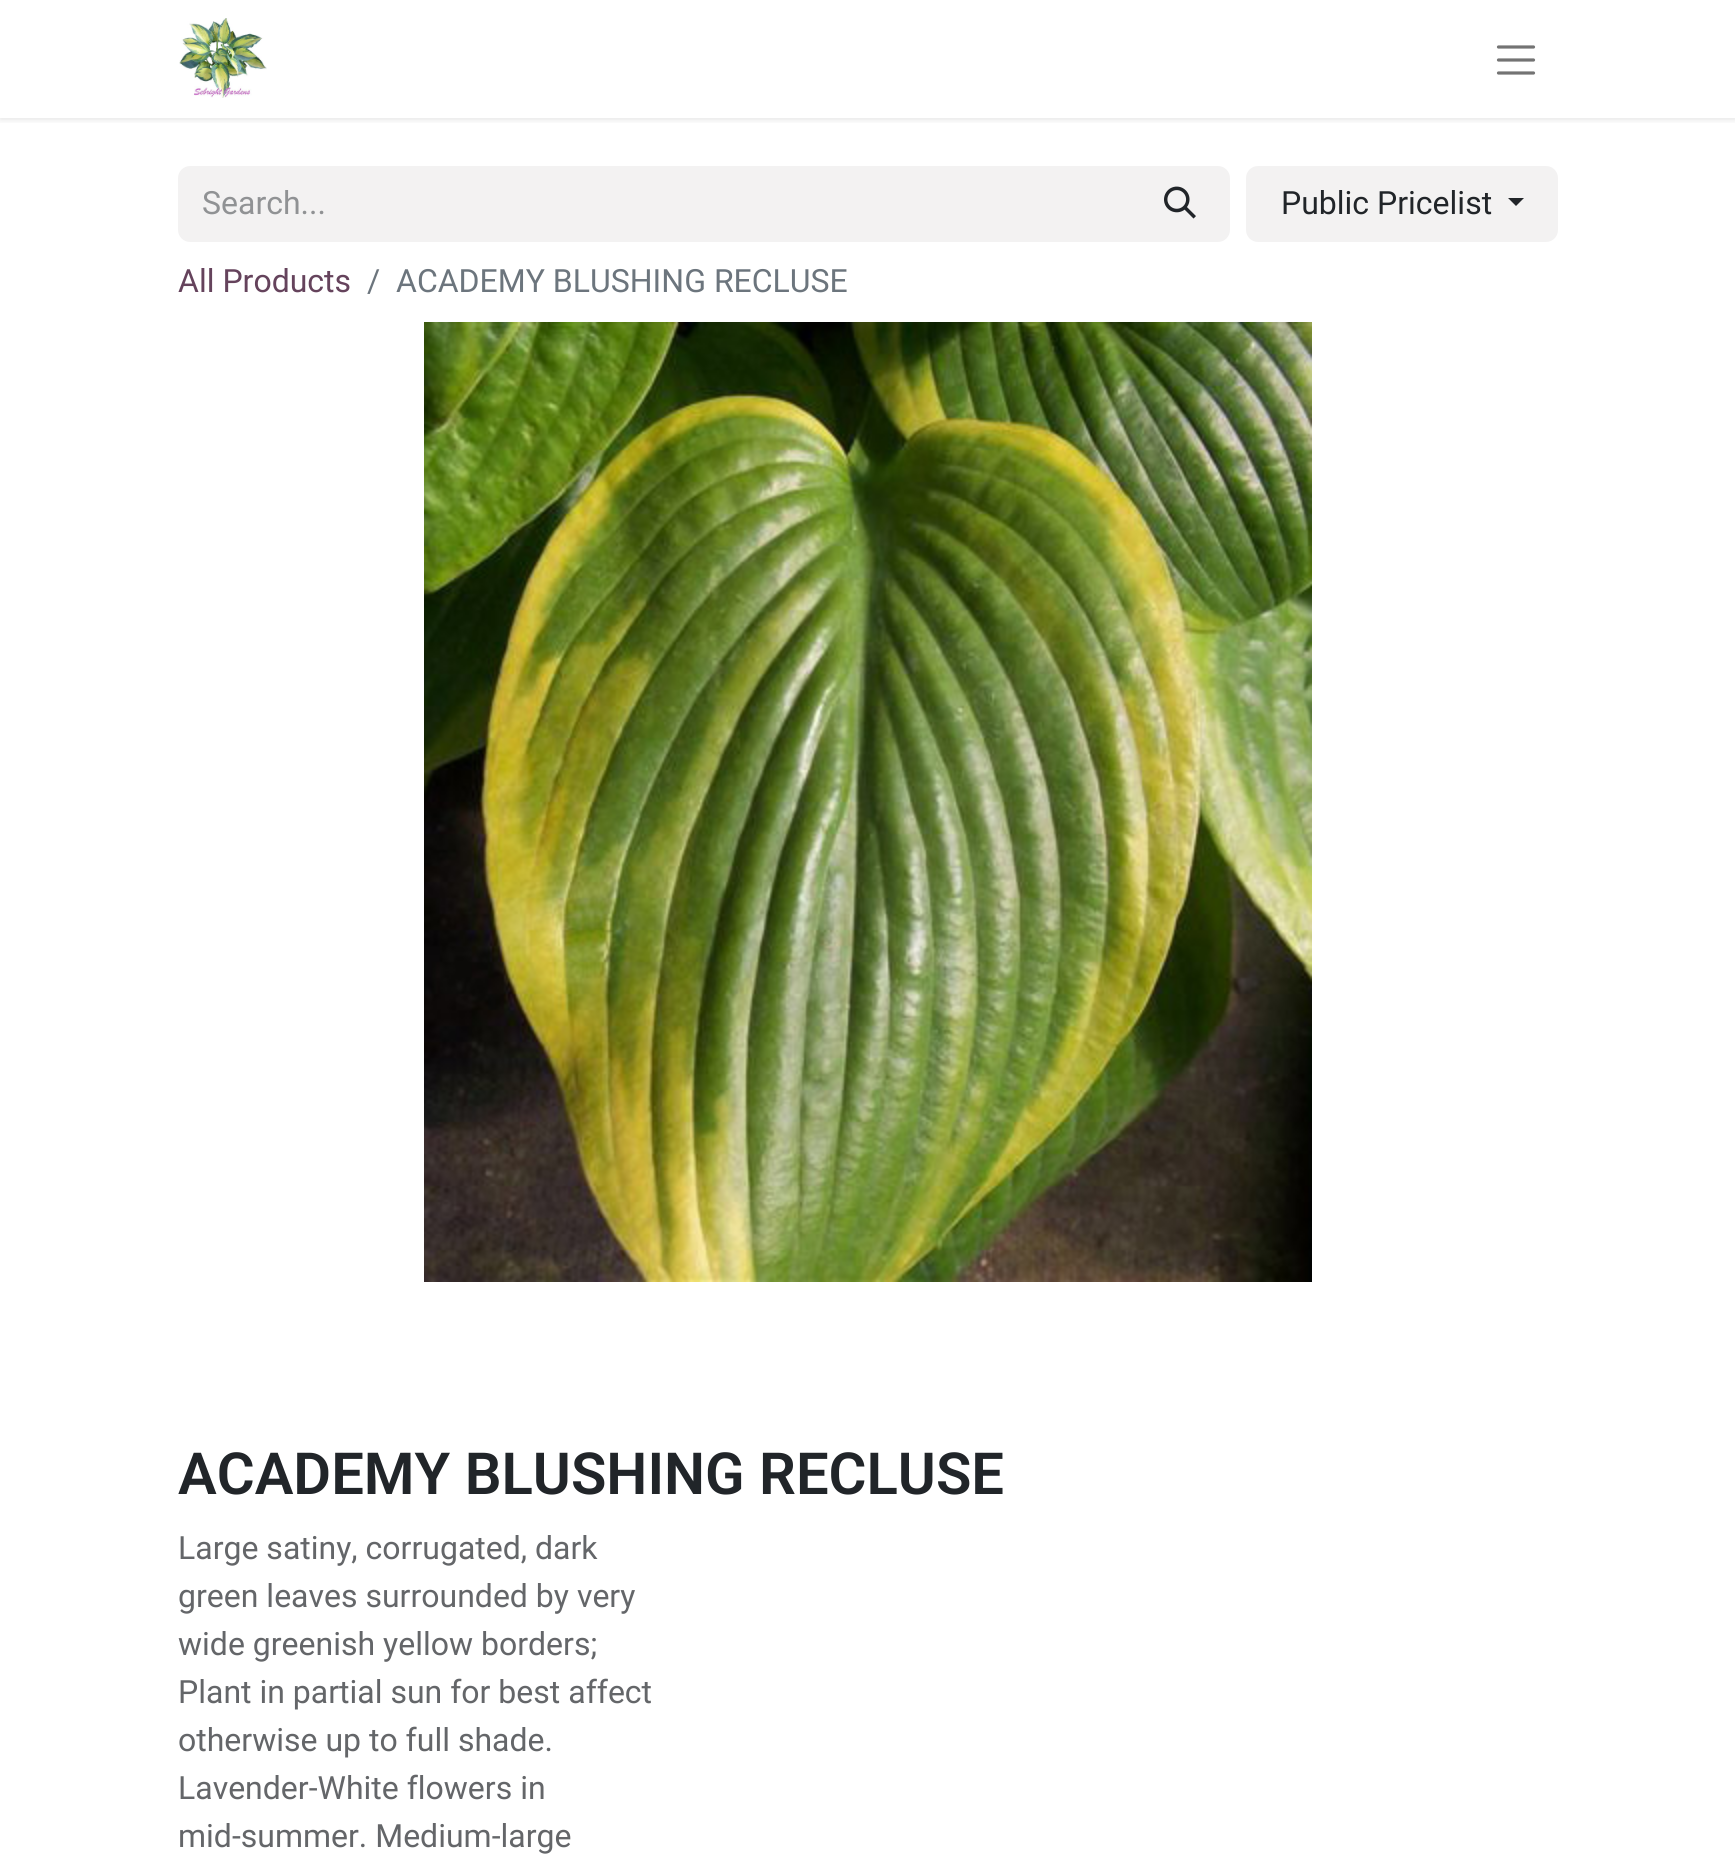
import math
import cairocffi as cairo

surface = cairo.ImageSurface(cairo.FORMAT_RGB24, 1735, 1872)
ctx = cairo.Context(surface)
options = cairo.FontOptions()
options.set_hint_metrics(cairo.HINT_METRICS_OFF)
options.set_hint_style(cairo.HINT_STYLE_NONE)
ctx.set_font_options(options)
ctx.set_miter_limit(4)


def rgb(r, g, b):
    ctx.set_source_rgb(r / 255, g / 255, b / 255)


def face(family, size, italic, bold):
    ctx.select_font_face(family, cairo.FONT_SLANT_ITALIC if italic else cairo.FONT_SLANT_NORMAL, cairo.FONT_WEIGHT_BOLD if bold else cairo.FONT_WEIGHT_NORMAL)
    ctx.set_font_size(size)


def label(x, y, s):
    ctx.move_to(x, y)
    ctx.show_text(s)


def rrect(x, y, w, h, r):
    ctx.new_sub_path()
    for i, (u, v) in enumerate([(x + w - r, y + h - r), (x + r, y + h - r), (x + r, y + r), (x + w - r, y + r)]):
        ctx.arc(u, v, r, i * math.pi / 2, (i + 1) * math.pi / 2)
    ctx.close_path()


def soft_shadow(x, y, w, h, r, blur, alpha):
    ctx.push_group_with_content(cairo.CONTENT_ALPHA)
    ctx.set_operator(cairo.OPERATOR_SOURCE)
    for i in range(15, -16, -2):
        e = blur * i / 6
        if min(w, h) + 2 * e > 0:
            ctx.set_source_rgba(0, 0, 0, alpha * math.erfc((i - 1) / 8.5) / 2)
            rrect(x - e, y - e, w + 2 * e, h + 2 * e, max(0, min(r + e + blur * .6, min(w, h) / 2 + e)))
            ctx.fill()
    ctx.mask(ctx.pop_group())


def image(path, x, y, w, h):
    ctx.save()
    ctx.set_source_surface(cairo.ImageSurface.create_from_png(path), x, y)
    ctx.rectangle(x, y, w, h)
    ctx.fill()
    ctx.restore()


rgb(255, 255, 255)
ctx.paint()
ctx.save()
ctx.rectangle(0, 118, 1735, 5)
ctx.clip()
rgb(0, 0, 0)
soft_shadow(0, 2, 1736, 118, 0, 3, 0.1)
ctx.restore()
image('image0.png', 179, 18, 88, 80)
ctx.new_path()
ctx.move_to(1498.5, 47)
ctx.line_to(1533.5, 47)
ctx.move_to(1498.5, 60)
ctx.line_to(1533.5, 60)
ctx.move_to(1498.5, 73)
ctx.line_to(1533.5, 73)
rgb(115, 115, 115)
ctx.set_line_width(3.2)
ctx.set_line_cap(cairo.LINE_CAP_ROUND)
ctx.stroke()
rgb(243, 242, 242)
ctx.new_path()
ctx.move_to(190, 166)
ctx.line_to(1132, 166)
ctx.line_to(1132, 242)
ctx.line_to(190, 242)
ctx.curve_to(183.5, 242, 178, 236.5, 178, 230)
ctx.line_to(178, 178)
ctx.curve_to(178, 171.5, 183.5, 166, 190, 166)
ctx.close_path()
ctx.fill()
face('Roboto', 32, 0, 0)
rgb(144, 146, 148)
label(202, 214, 'Search...')
rgb(243, 242, 242)
ctx.new_path()
ctx.move_to(1131, 167)
ctx.line_to(1218, 167)
ctx.curve_to(1224, 167, 1229, 172, 1229, 178)
ctx.line_to(1229, 230)
ctx.curve_to(1229, 236, 1224, 241, 1218, 241)
ctx.line_to(1131, 241)
ctx.close_path()
ctx.fill_preserve()
ctx.set_line_width(2)
ctx.set_line_cap(cairo.LINE_CAP_BUTT)
ctx.stroke()
image('image1.png', 1164, 186, 32, 33)
rrect(1247, 167, 310, 74, 11)
ctx.fill_preserve()
ctx.stroke()
rgb(33, 37, 41)
label(1281, 214, 'Public Pricelist')
ctx.new_path()
ctx.move_to(1508, 198)
ctx.line_to(1524, 198)
ctx.line_to(1516, 206)
ctx.close_path()
ctx.fill()
rgb(101, 67, 92)
label(178, 292, 'All Products')
rgb(108, 117, 125)
label(367, 292, '/')
label(396, 292, 'ACADEMY BLUSHING RECLUSE')
image('image2.png', 424, 322, 888, 960)
face('Roboto SemiBold', 58, 0, 0)
rgb(33, 37, 41)
label(178, 1494, 'ACADEMY BLUSHING RECLUSE')
face('Roboto', 32, 0, 0)
rgb(100, 102, 105)
label(178, 1559, 'Large satiny, corrugated, dark')
label(178, 1607, 'green leaves surrounded by very')
label(178, 1655, 'wide greenish yellow borders;')
label(178, 1703, 'Plant in partial sun for best affect')
label(178, 1751, 'otherwise up to full shade.')
label(178, 1799, 'Lavender-White flowers in')
label(178, 1847, 'mid-summer. Medium-large')
surface.write_to_png('render.png')
